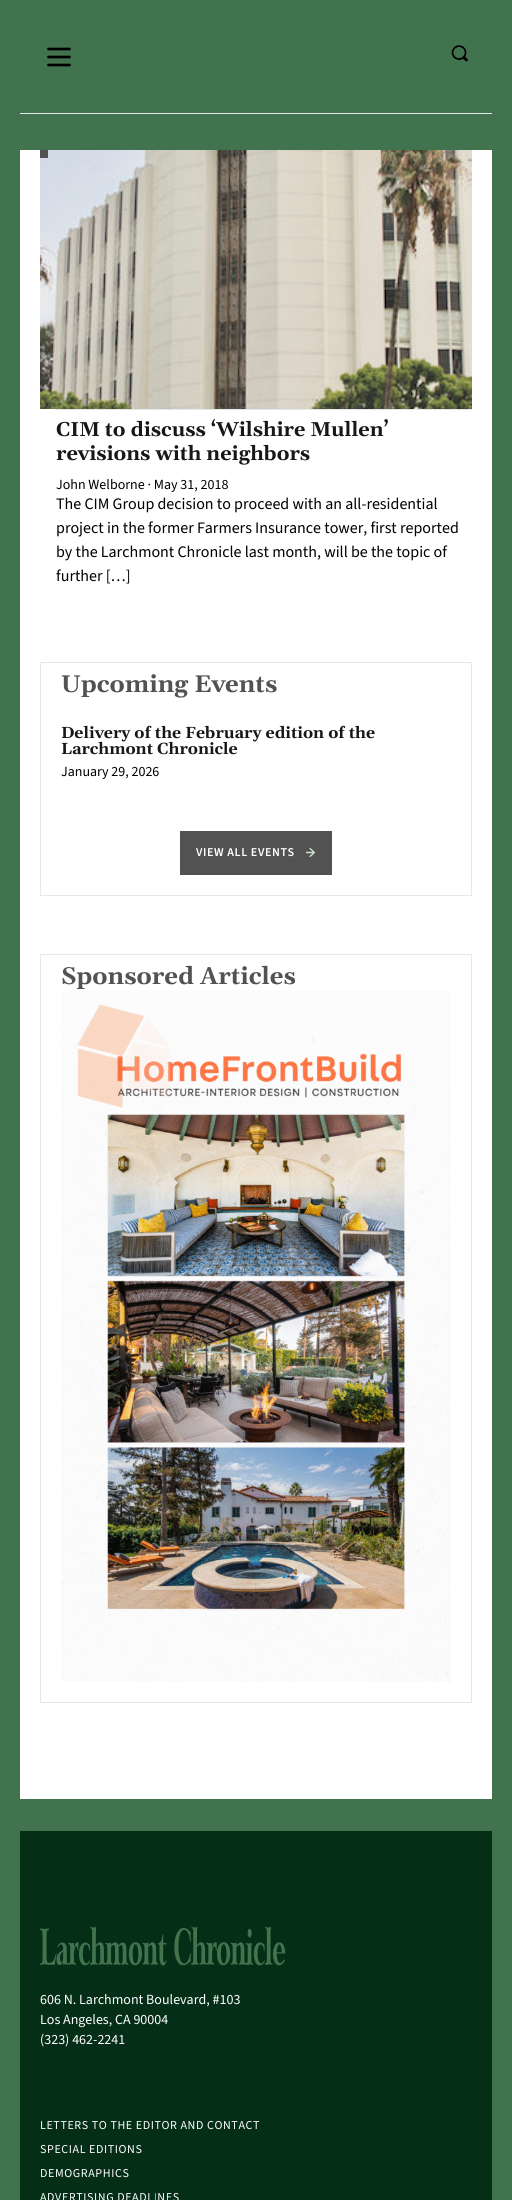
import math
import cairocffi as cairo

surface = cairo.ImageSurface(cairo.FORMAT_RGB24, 512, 2200)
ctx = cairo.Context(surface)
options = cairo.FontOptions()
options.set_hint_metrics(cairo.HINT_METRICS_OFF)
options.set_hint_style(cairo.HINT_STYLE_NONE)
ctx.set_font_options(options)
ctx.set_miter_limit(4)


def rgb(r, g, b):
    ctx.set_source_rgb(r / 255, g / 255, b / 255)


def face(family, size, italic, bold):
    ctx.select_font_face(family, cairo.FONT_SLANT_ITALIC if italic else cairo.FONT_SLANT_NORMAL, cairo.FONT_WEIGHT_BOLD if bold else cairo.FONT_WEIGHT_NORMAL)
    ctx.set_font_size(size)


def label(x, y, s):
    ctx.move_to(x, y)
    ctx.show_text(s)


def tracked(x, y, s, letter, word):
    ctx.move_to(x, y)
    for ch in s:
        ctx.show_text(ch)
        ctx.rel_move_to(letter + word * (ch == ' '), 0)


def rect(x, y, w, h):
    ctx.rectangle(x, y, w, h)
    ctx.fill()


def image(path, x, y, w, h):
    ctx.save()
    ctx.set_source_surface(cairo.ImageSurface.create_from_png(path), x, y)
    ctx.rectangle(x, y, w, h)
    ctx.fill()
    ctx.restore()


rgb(65, 115, 79)
ctx.paint()
ctx.new_path()
ctx.move_to(48.5, 49)
ctx.line_to(69.5, 49)
ctx.move_to(48.5, 57)
ctx.line_to(69.5, 57)
ctx.move_to(48.5, 65)
ctx.line_to(69.5, 65)
rgb(0, 0, 0)
ctx.set_line_width(2.7)
ctx.set_line_cap(cairo.LINE_CAP_ROUND)
ctx.set_line_join(cairo.LINE_JOIN_ROUND)
ctx.stroke()
image('image0.png', 451, 45, 17, 17)
rgb(229, 231, 235)
rect(20, 113, 472, 1)
rgb(255, 255, 255)
rect(20, 150, 472, 1649)
image('image1.png', 40, 150, 432, 259)
rgb(82, 82, 82)
rect(40, 150, 8, 8)
rgb(229, 231, 235)
rect(56, 409, 416, 1)
face('Gelasio', 20, 0, 1)
rgb(23, 23, 23)
label(56, 436, 'CIM to discuss ‘Wilshire Mullen’')
label(56, 460, 'revisions with neighbors')
face('Source Sans 3', 14, 0, 0)
rgb(0, 0, 0)
label(56, 489, 'John Welborne · May 31, 2018')
face('Source Sans 3', 16, 0, 0)
label(56, 509, 'The CIM Group decision to proceed with an all-residential')
label(56, 533, 'project in the former Farmers Insurance tower, first reported')
label(56, 557, 'by the Larchmont Chronicle last month, will be the topic of')
label(56, 581, 'further […]')
ctx.rectangle(40.5, 662.5, 431, 233)
rgb(229, 231, 235)
ctx.set_line_width(1)
ctx.set_line_cap(cairo.LINE_CAP_BUTT)
ctx.set_line_join(cairo.LINE_JOIN_MITER)
ctx.stroke()
face('Gelasio', 24, 0, 1)
rgb(82, 82, 82)
label(61, 692, 'Upcoming Events')
face('Gelasio', 16, 0, 1)
rgb(23, 23, 23)
label(61, 738, 'Delivery of the February edition of the')
label(61, 754, 'Larchmont Chronicle')
face('Source Sans 3', 14, 0, 0)
rgb(0, 0, 0)
label(61, 776, 'January 29, 2026')
rgb(82, 82, 82)
rect(180, 831, 152, 44)
face('Source Sans 3 SemiBold', 12, 0, 0)
rgb(255, 255, 255)
tracked(196, 856, 'VIEW ALL EVENTS', 0.6, 0)
image('image2.png', 306, 848, 10, 9)
ctx.rectangle(40.5, 954.5, 431, 748)
rgb(229, 231, 235)
ctx.stroke()
face('Gelasio', 24, 0, 1)
rgb(82, 82, 82)
label(61, 984, 'Sponsored Articles')
image('image3.png', 61, 990, 390, 692)
rgb(5, 46, 22)
rect(20, 1831, 472, 369)
image('image4.png', 40, 1927, 246, 39)
face('Source Sans 3', 14, 0, 0)
rgb(255, 255, 255)
label(40, 2004, '606 N. Larchmont Boulevard, #103')
label(40, 2024, 'Los Angeles, CA 90004')
label(40, 2044, '(323) 462-2241')
face('Source Sans 3', 12, 0, 0)
tracked(40, 2129, 'LETTERS TO THE EDITOR AND CONTACT', 0.6, 0)
tracked(40, 2153, 'SPECIAL EDITIONS', 0.6, 0)
tracked(40, 2177, 'DEMOGRAPHICS', 0.6, 0)
tracked(40, 2201, 'ADVERTISING DEADLINES', 0.6, 0)
surface.write_to_png('render.png')
